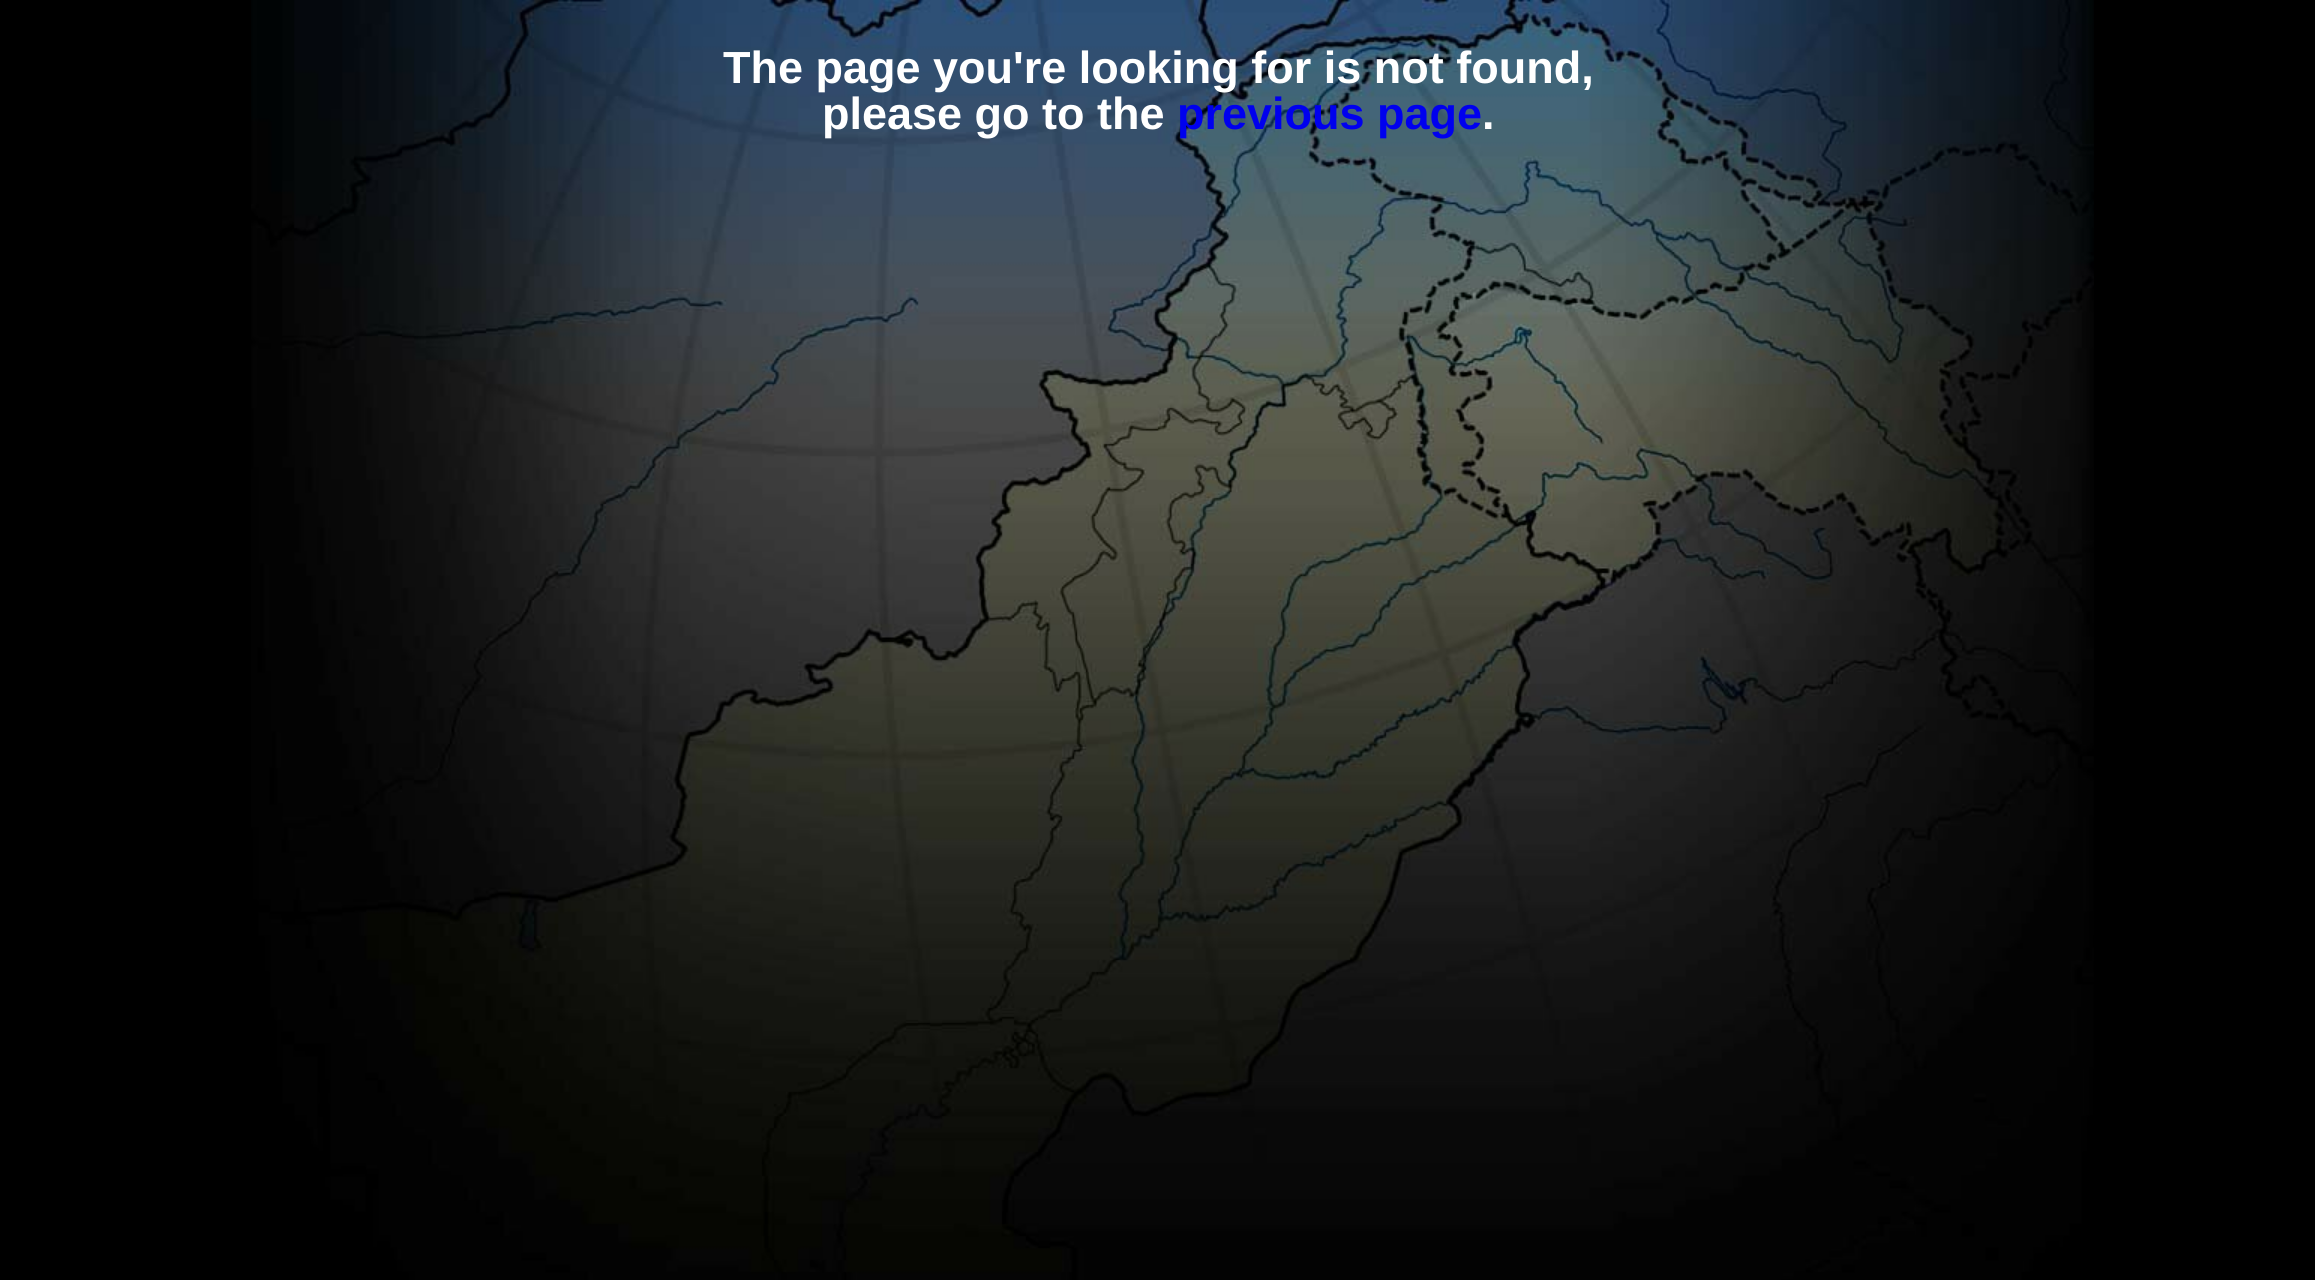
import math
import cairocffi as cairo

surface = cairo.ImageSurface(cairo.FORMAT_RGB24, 2315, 1280)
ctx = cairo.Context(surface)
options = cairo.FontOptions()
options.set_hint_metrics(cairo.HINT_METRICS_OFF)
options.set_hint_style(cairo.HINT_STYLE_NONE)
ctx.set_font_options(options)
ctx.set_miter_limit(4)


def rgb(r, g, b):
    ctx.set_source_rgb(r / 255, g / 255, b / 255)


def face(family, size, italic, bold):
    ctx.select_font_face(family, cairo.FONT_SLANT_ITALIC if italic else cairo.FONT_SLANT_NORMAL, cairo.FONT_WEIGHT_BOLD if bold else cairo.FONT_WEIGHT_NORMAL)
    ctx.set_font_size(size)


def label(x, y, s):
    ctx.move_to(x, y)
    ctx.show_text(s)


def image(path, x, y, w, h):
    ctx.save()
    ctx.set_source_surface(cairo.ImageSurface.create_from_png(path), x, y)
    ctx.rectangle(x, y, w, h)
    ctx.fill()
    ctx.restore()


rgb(0, 0, 0)
ctx.paint()
image('image0.png', 251, 0, 1843, 1280)
face('Liberation Sans', 45, 0, 1)
rgb(255, 255, 255)
label(723, 83, 'The page you\'re looking for is not found,')
label(822, 129, 'please go to the')
rgb(0, 0, 238)
label(1177, 129, 'previous page')
rgb(255, 255, 255)
label(1482, 129, '.')
surface.write_to_png('render.png')
